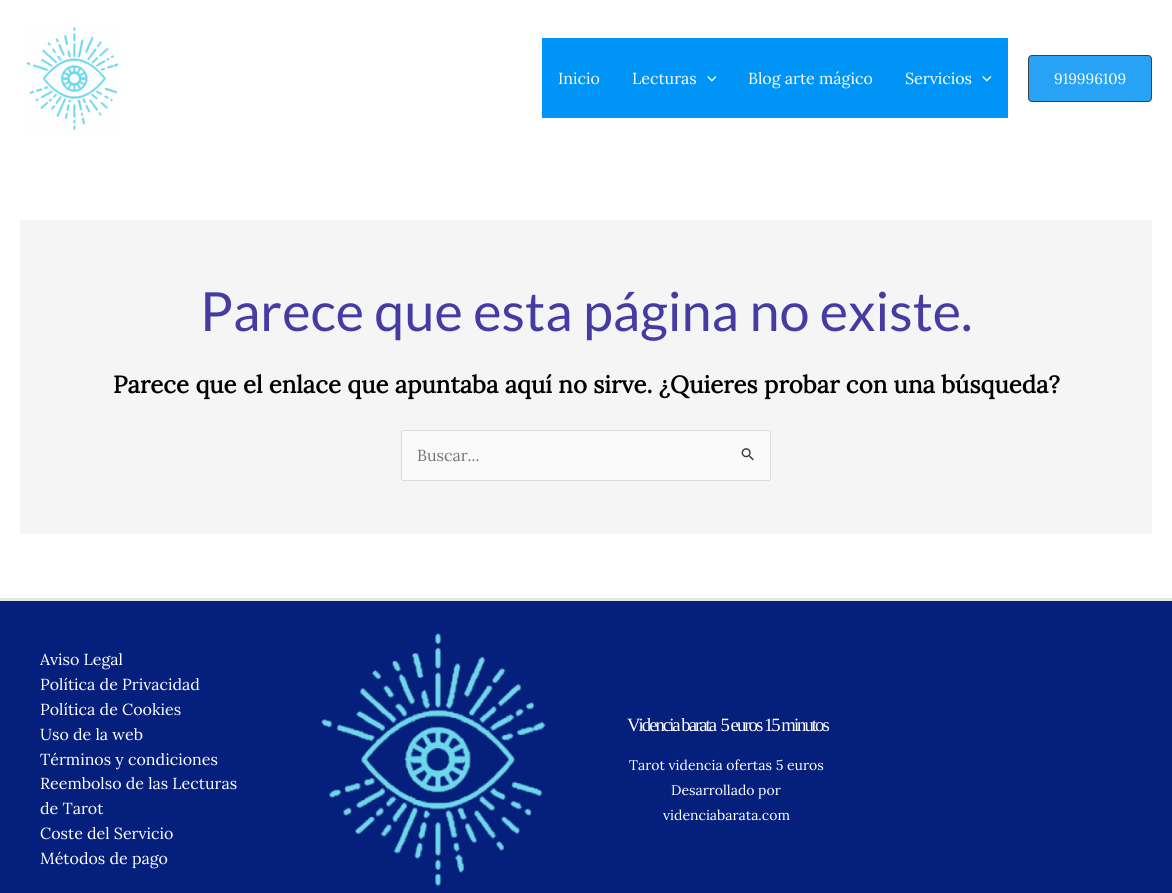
import math
import cairocffi as cairo

surface = cairo.ImageSurface(cairo.FORMAT_RGB24, 1172, 893)
ctx = cairo.Context(surface)
options = cairo.FontOptions()
options.set_hint_metrics(cairo.HINT_METRICS_OFF)
options.set_hint_style(cairo.HINT_STYLE_NONE)
ctx.set_font_options(options)
ctx.set_miter_limit(4)


def rgb(r, g, b):
    ctx.set_source_rgb(r / 255, g / 255, b / 255)


def face(family, size, italic, bold):
    ctx.select_font_face(family, cairo.FONT_SLANT_ITALIC if italic else cairo.FONT_SLANT_NORMAL, cairo.FONT_WEIGHT_BOLD if bold else cairo.FONT_WEIGHT_NORMAL)
    ctx.set_font_size(size)


def label(x, y, s):
    ctx.move_to(x, y)
    ctx.show_text(s)


def tracked(x, y, s, letter, word):
    ctx.move_to(x, y)
    for ch in s:
        ctx.show_text(ch)
        ctx.rel_move_to(letter + word * (ch == ' '), 0)


def rect(x, y, w, h):
    ctx.rectangle(x, y, w, h)
    ctx.fill()


def rrect(x, y, w, h, r):
    ctx.new_sub_path()
    for i, (u, v) in enumerate([(x + w - r, y + h - r), (x + r, y + h - r), (x + r, y + r), (x + w - r, y + r)]):
        ctx.arc(u, v, r, i * math.pi / 2, (i + 1) * math.pi / 2)
    ctx.close_path()


def image(path, x, y, w, h):
    ctx.save()
    ctx.set_source_surface(cairo.ImageSurface.create_from_png(path), x, y)
    ctx.rectangle(x, y, w, h)
    ctx.fill()
    ctx.restore()


rgb(255, 255, 255)
ctx.paint()
image('image0.png', 26, 27, 93, 103)
rgb(0, 148, 246)
rect(542, 38, 466, 80)
face('Lora', 16, 0, 0)
rgb(255, 255, 255)
label(558, 84, 'Inicio')
label(632, 84, 'Lecturas')
image('image1.png', 707, 76, 9, 6)
label(748, 84, 'Blog arte mágico')
label(905, 84, 'Servicios')
image('image2.png', 982, 76, 10, 6)
rgb(39, 162, 244)
rrect(1028.5, 55.5, 123, 46, 3.5)
ctx.fill_preserve()
rgb(66, 66, 66)
ctx.set_line_width(1)
ctx.stroke()
face('Lora', 15, 0, 0)
rgb(255, 255, 255)
label(1054, 84, '919996109')
rgb(245, 245, 245)
rect(20, 220, 1132, 314)
face('Lato', 54, 0, 0)
rgb(70, 58, 163)
label(200, 331, 'Parece que esta página no existe.')
face('Lora', 24, 0, 1)
rgb(0, 0, 0)
label(113, 393, 'Parece que el enlace que apuntaba aquí no sirve. ¿Quieres probar con una búsqueda?')
rgb(250, 250, 250)
rrect(401.5, 430.5, 369, 50, 1.5)
ctx.fill_preserve()
rgb(221, 221, 221)
ctx.stroke()
face('Lora', 16, 0, 0)
rgb(117, 117, 117)
label(417, 461, 'Buscar...')
image('image3.png', 741, 448, 13, 13)
rgb(4, 32, 124)
rect(0, 601, 1172, 292)
rgb(230, 230, 230)
rect(0, 598, 1172, 3)
rgb(255, 255, 255)
label(40, 665, 'Aviso Legal')
label(40, 690, 'Política de Privacidad')
label(40, 715, 'Política de Cookies')
label(40, 740, 'Uso de la web')
label(40, 765, 'Términos y condiciones')
label(40, 789, 'Reembolso de las Lecturas')
label(40, 814, 'de Tarot')
label(40, 839, 'Coste del Servicio')
label(40, 864, 'Métodos de pago')
image('image4.png', 321, 633, 225, 254)
face('Liberation Serif', 18.75, 0, 0)
tracked(627, 731, 'Videncia barata  5 euros 15 minutos', -2, 0)
face('Lora', 14, 0, 0)
label(629, 770, 'Tarot videncia ofertas 5 euros')
label(671, 795, 'Desarrollado por')
label(663, 820, 'videnciabarata.com')
surface.write_to_png('render.png')
